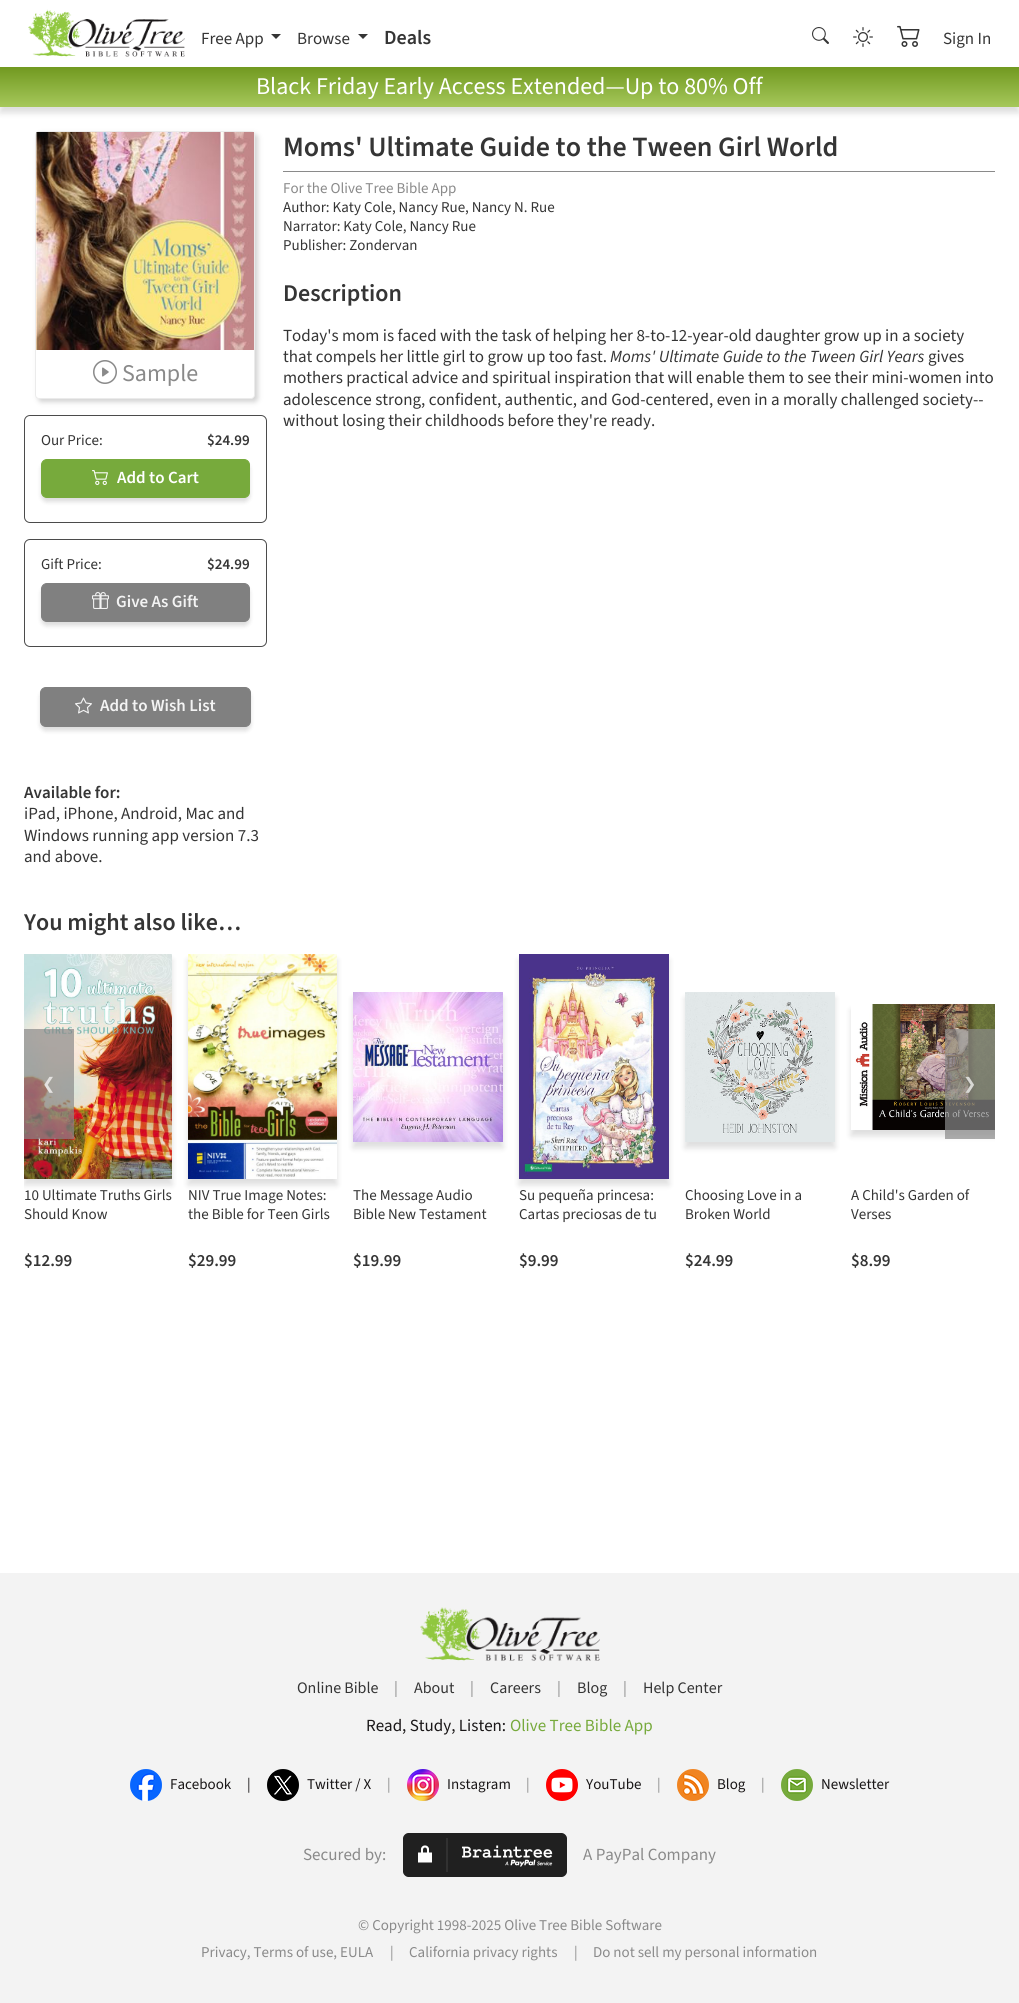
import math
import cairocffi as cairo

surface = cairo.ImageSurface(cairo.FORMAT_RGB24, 1019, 2003)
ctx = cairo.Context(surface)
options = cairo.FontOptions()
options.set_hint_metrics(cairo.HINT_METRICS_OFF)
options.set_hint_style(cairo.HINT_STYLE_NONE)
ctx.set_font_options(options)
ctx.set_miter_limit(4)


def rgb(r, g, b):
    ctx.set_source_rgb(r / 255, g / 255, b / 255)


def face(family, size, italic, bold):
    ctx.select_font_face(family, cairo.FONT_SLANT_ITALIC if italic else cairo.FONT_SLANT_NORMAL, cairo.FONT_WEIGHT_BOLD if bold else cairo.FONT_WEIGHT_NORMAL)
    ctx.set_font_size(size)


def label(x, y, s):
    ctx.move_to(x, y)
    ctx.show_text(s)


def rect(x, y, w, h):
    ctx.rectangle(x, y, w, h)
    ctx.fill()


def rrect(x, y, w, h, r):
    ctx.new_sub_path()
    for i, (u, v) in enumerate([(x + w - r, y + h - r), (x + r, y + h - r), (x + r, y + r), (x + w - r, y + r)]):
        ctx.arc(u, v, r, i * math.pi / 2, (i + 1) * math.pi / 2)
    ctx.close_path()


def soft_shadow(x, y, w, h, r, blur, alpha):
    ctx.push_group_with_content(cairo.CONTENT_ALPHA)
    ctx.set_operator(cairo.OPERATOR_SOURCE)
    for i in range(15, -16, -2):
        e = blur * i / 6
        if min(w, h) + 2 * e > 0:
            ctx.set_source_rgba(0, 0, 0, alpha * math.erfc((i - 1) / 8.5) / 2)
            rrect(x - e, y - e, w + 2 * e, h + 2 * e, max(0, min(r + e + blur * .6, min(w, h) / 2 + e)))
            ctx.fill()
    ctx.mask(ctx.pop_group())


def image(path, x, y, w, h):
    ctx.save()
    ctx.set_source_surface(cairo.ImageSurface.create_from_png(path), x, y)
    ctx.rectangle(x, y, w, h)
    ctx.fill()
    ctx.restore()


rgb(255, 255, 255)
ctx.paint()
image('image0.png', 28, 9, 157, 48)
face('Source Sans 3', 17, 0, 0)
rgb(53, 53, 53)
label(201, 44, 'Free App')
ctx.new_path()
ctx.move_to(271, 34)
ctx.line_to(281, 34)
ctx.line_to(276, 39)
ctx.close_path()
ctx.fill()
label(297, 44, 'Browse')
ctx.new_path()
ctx.move_to(358, 34)
ctx.line_to(368, 34)
ctx.line_to(363, 39)
ctx.close_path()
ctx.fill()
face('Source Sans 3 SemiBold', 20, 0, 0)
label(384, 44, 'Deals')
image('image1.png', 812, 27, 17, 17)
image('image2.png', 853, 27, 20, 20)
image('image3.png', 897, 25, 23, 22)
face('Source Sans 3', 17, 0, 0)
label(943, 44, 'Sign In')
rgb(0, 0, 0)
soft_shadow(0, 73, 1019, 40, 0, 3, 0.13)
gradient = cairo.LinearGradient(510, 67, 510, 107)
gradient.add_color_stop_rgba(0, 0.443, 0.6, 0.125, 1)
gradient.add_color_stop_rgba(1, 0.651, 0.784, 0.357, 1)
ctx.set_source(gradient)
rect(0, 67, 1019, 40)
face('Source Sans 3', 24, 0, 0)
rgb(255, 255, 255)
label(256, 94, 'Black Friday Early Access Extended—Up to 80% Off')
face('Source Sans 3 SemiBold', 28, 0, 0)
rgb(53, 53, 53)
label(283, 156, 'Moms\' Ultimate Guide to the Tween Girl World')
rgb(138, 138, 138)
rect(283, 171, 712, 1)
face('Source Sans 3', 15, 0, 0)
label(283, 193, 'For the Olive Tree Bible App')
rgb(53, 53, 53)
label(283, 212, 'Author: Katy Cole, Nancy Rue, Nancy N. Rue')
label(283, 231, 'Narrator: Katy Cole, Nancy Rue')
label(283, 250, 'Publisher: Zondervan')
face('Source Sans 3 SemiBold', 24, 0, 0)
label(283, 301, 'Description')
face('Source Sans 3', 17, 0, 0)
label(283, 341, 'Today\'s mom is faced with the task of helping her 8-to-12-year-old daughter grow up in a society')
label(283, 362, 'that compels her little girl to grow up too fast.')
face('Source Sans 3', 17, 1, 0)
label(610, 362, 'Moms\' Ultimate Guide to the Tween Girl Years')
face('Source Sans 3', 17, 0, 0)
label(928, 362, 'gives')
label(283, 383, 'mothers practical advice and spiritual inspiration that will enable them to see their mini-women into')
label(283, 405, 'adolescence strong, confident, authentic, and God-centered, even in a morally challenged society--')
label(283, 426, 'without losing their childhoods before they\'re ready.')
ctx.save()
ctx.set_fill_rule(cairo.FILL_RULE_EVEN_ODD)
ctx.new_path()
ctx.move_to(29, 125)
ctx.line_to(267, 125)
ctx.line_to(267, 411)
ctx.line_to(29, 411)
ctx.close_path()
ctx.move_to(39, 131)
ctx.line_to(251, 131)
ctx.curve_to(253, 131, 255, 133, 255, 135)
ctx.line_to(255, 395)
ctx.curve_to(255, 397, 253, 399, 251, 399)
ctx.line_to(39, 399)
ctx.curve_to(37, 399, 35, 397, 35, 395)
ctx.line_to(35, 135)
ctx.curve_to(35, 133, 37, 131, 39, 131)
ctx.close_path()
ctx.clip()
rgb(211, 211, 211)
soft_shadow(38, 134, 220, 268, 4, 2.5, 1)
ctx.restore()
rrect(35.5, 131.5, 219, 267, 3.5)
ctx.set_source_rgba(0, 0, 0, 0.08)
ctx.set_line_width(1)
ctx.stroke()
image('image4.png', 36, 132, 218, 218)
image('image5.png', 93, 360, 24, 24)
face('Source Sans 3', 24, 0, 0)
rgb(138, 138, 138)
label(122, 381, 'Sample')
rrect(24.5, 415.5, 242, 107, 5.5)
rgb(75, 75, 75)
ctx.stroke()
face('Source Sans 3', 15, 0, 0)
rgb(53, 53, 53)
label(41, 445, 'Our Price:')
face('Source Sans 3 SemiBold', 15, 0, 0)
label(207, 445, '$24.99')
rgb(0, 0, 0)
soft_shadow(41, 463, 209, 39, 6, 2, 0.13)
rgb(119, 170, 60)
rrect(41.5, 459.5, 208, 38, 5.5)
ctx.fill_preserve()
ctx.stroke()
image('image6.png', 92, 470, 16, 15)
face('Source Sans 3 SemiBold', 17, 0, 0)
rgb(255, 255, 255)
label(117, 483, 'Add to Cart')
rrect(24.5, 539.5, 242, 107, 5.5)
rgb(75, 75, 75)
ctx.stroke()
face('Source Sans 3', 15, 0, 0)
rgb(53, 53, 53)
label(41, 569, 'Gift Price:')
face('Source Sans 3 SemiBold', 15, 0, 0)
label(207, 569, '$24.99')
rgb(0, 0, 0)
soft_shadow(41, 587, 209, 39, 6, 2, 0.13)
rgb(128, 128, 128)
rrect(41.5, 583.5, 208, 38, 5.5)
ctx.fill_preserve()
ctx.stroke()
image('image7.png', 92, 592, 17, 17)
face('Source Sans 3 SemiBold', 17, 0, 0)
rgb(243, 243, 243)
label(116, 607, 'Give As Gift')
rgb(0, 0, 0)
soft_shadow(40, 691, 211, 40, 6, 2, 0.13)
rgb(128, 128, 128)
rrect(40.5, 687.5, 210, 39, 5.5)
ctx.fill_preserve()
ctx.stroke()
image('image8.png', 75, 697, 17, 17)
rgb(243, 243, 243)
label(100, 711, 'Add to Wish List')
rgb(53, 53, 53)
label(24, 798, 'Available for:')
face('Source Sans 3', 17, 0, 0)
label(24, 819, 'iPad, iPhone, Android, Mac and')
label(24, 841, 'Windows running app version 7.3')
label(24, 862, 'and above.')
face('Source Sans 3 SemiBold', 24, 0, 0)
label(24, 930, 'You might also like…')
ctx.save()
ctx.rectangle(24, 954, 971, 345)
ctx.clip()
rgb(0, 0, 0)
soft_shadow(24, 960, 148, 225, 0, 3, 0.13)
ctx.restore()
image('image9.png', 24, 954, 148, 225)
ctx.set_source_rgba(0.541, 0.541, 0.541, 0.7)
rect(24, 1029, 50, 110)
face('DejaVu Sans', 16, 0, 0)
rgb(228, 226, 224)
label(42, 1089, '❮')
ctx.save()
ctx.rectangle(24, 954, 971, 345)
ctx.clip()
ctx.set_fill_rule(cairo.FILL_RULE_EVEN_ODD)
ctx.new_path()
ctx.move_to(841, 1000)
ctx.line_to(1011, 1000)
ctx.line_to(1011, 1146)
ctx.line_to(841, 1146)
ctx.close_path()
ctx.move_to(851, 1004)
ctx.line_to(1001, 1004)
ctx.line_to(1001, 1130)
ctx.line_to(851, 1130)
ctx.close_path()
ctx.clip()
rgb(0, 0, 0)
soft_shadow(851, 1010, 150, 126, 0, 3, 0.13)
ctx.restore()
image('image14.png', 855, 1004, 140, 126)
ctx.set_source_rgba(0.541, 0.541, 0.541, 0.7)
rect(945, 1029, 50, 110)
rgb(216, 216, 212)
label(963, 1089, '❯')
face('Source Sans 3', 15, 0, 0)
rgb(53, 53, 53)
label(24, 1200, '10 Ultimate Truths Girls')
label(24, 1219, 'Should Know')
face('Source Sans 3 SemiBold', 17, 0, 0)
label(24, 1266, '$12.99')
rgb(0, 0, 0)
soft_shadow(188, 960, 149, 225, 0, 3, 0.13)
image('image10.png', 188, 954, 149, 225)
face('Source Sans 3', 15, 0, 0)
rgb(53, 53, 53)
label(188, 1200, 'NIV True Image Notes:')
label(188, 1219, 'the Bible for Teen Girls')
face('Source Sans 3 SemiBold', 17, 0, 0)
label(188, 1266, '$29.99')
rgb(0, 0, 0)
soft_shadow(353, 998, 150, 150, 0, 3, 0.13)
image('image11.png', 353, 992, 150, 150)
face('Source Sans 3', 15, 0, 0)
rgb(53, 53, 53)
label(353, 1200, 'The Message Audio')
label(353, 1219, 'Bible New Testament')
face('Source Sans 3 SemiBold', 17, 0, 0)
label(353, 1266, '$19.99')
rgb(0, 0, 0)
soft_shadow(519, 960, 150, 225, 0, 3, 0.13)
image('image12.png', 519, 954, 150, 225)
face('Source Sans 3', 15, 0, 0)
rgb(53, 53, 53)
label(519, 1200, 'Su pequeña princesa:')
label(519, 1219, 'Cartas preciosas de tu')
face('Source Sans 3 SemiBold', 17, 0, 0)
label(519, 1266, '$9.99')
rgb(0, 0, 0)
soft_shadow(685, 998, 150, 150, 0, 3, 0.13)
image('image13.png', 685, 992, 150, 150)
face('Source Sans 3', 15, 0, 0)
rgb(53, 53, 53)
label(685, 1200, 'Choosing Love in a')
label(685, 1219, 'Broken World')
face('Source Sans 3 SemiBold', 17, 0, 0)
label(685, 1266, '$24.99')
face('Source Sans 3', 15, 0, 0)
label(851, 1200, 'A Child\'s Garden of')
label(851, 1219, 'Verses')
face('Source Sans 3 SemiBold', 17, 0, 0)
label(851, 1266, '$8.99')
rgb(243, 243, 243)
rect(0, 1573, 1019, 430)
image('image15.png', 420, 1607, 180, 54)
face('Source Sans 3', 16, 0, 0)
rgb(53, 53, 53)
label(297, 1693, 'Online Bible')
rgb(138, 138, 138)
label(394, 1693, '|')
rgb(53, 53, 53)
label(414, 1693, 'About')
rgb(138, 138, 138)
label(470, 1693, '|')
rgb(53, 53, 53)
label(490, 1693, 'Careers')
rgb(138, 138, 138)
label(557, 1693, '|')
rgb(53, 53, 53)
label(577, 1693, 'Blog')
rgb(138, 138, 138)
label(623, 1693, '|')
rgb(53, 53, 53)
label(643, 1693, 'Help Center')
face('Source Sans 3', 17, 0, 0)
rgb(26, 23, 24)
label(366, 1731, 'Read, Study, Listen:')
rgb(119, 170, 60)
label(510, 1731, 'Olive Tree Bible App')
image('image16.png', 130, 1769, 32, 32)
face('Source Sans 3', 15, 0, 0)
rgb(26, 23, 24)
label(170, 1789, 'Facebook')
label(247, 1789, '|')
image('image17.png', 267, 1769, 32, 32)
label(307, 1789, 'Twitter / X')
rgb(138, 138, 138)
label(387, 1789, '|')
image('image18.png', 407, 1769, 32, 32)
rgb(26, 23, 24)
label(447, 1789, 'Instagram')
rgb(138, 138, 138)
label(526, 1789, '|')
image('image19.png', 546, 1769, 32, 32)
rgb(26, 23, 24)
label(586, 1789, 'YouTube')
rgb(138, 138, 138)
label(657, 1789, '|')
image('image20.png', 677, 1769, 32, 32)
rgb(26, 23, 24)
label(717, 1789, 'Blog')
rgb(138, 138, 138)
label(761, 1789, '|')
image('image21.png', 781, 1769, 32, 32)
rgb(26, 23, 24)
label(821, 1789, 'Newsletter')
face('Source Sans 3', 17, 0, 0)
rgb(138, 138, 138)
label(303, 1860, 'Secured by:')
image('image22.png', 403, 1833, 164, 44)
label(583, 1860, 'A PayPal Company')
face('Source Sans 3', 15, 0, 0)
label(358, 1930, '© Copyright 1998-2025 Olive Tree Bible Software')
label(201, 1957, 'Privacy, Terms of use, EULA')
label(390, 1957, '|')
label(409, 1957, 'California privacy rights')
label(574, 1957, '|')
label(593, 1957, 'Do not sell my personal information')
surface.write_to_png('render.png')
